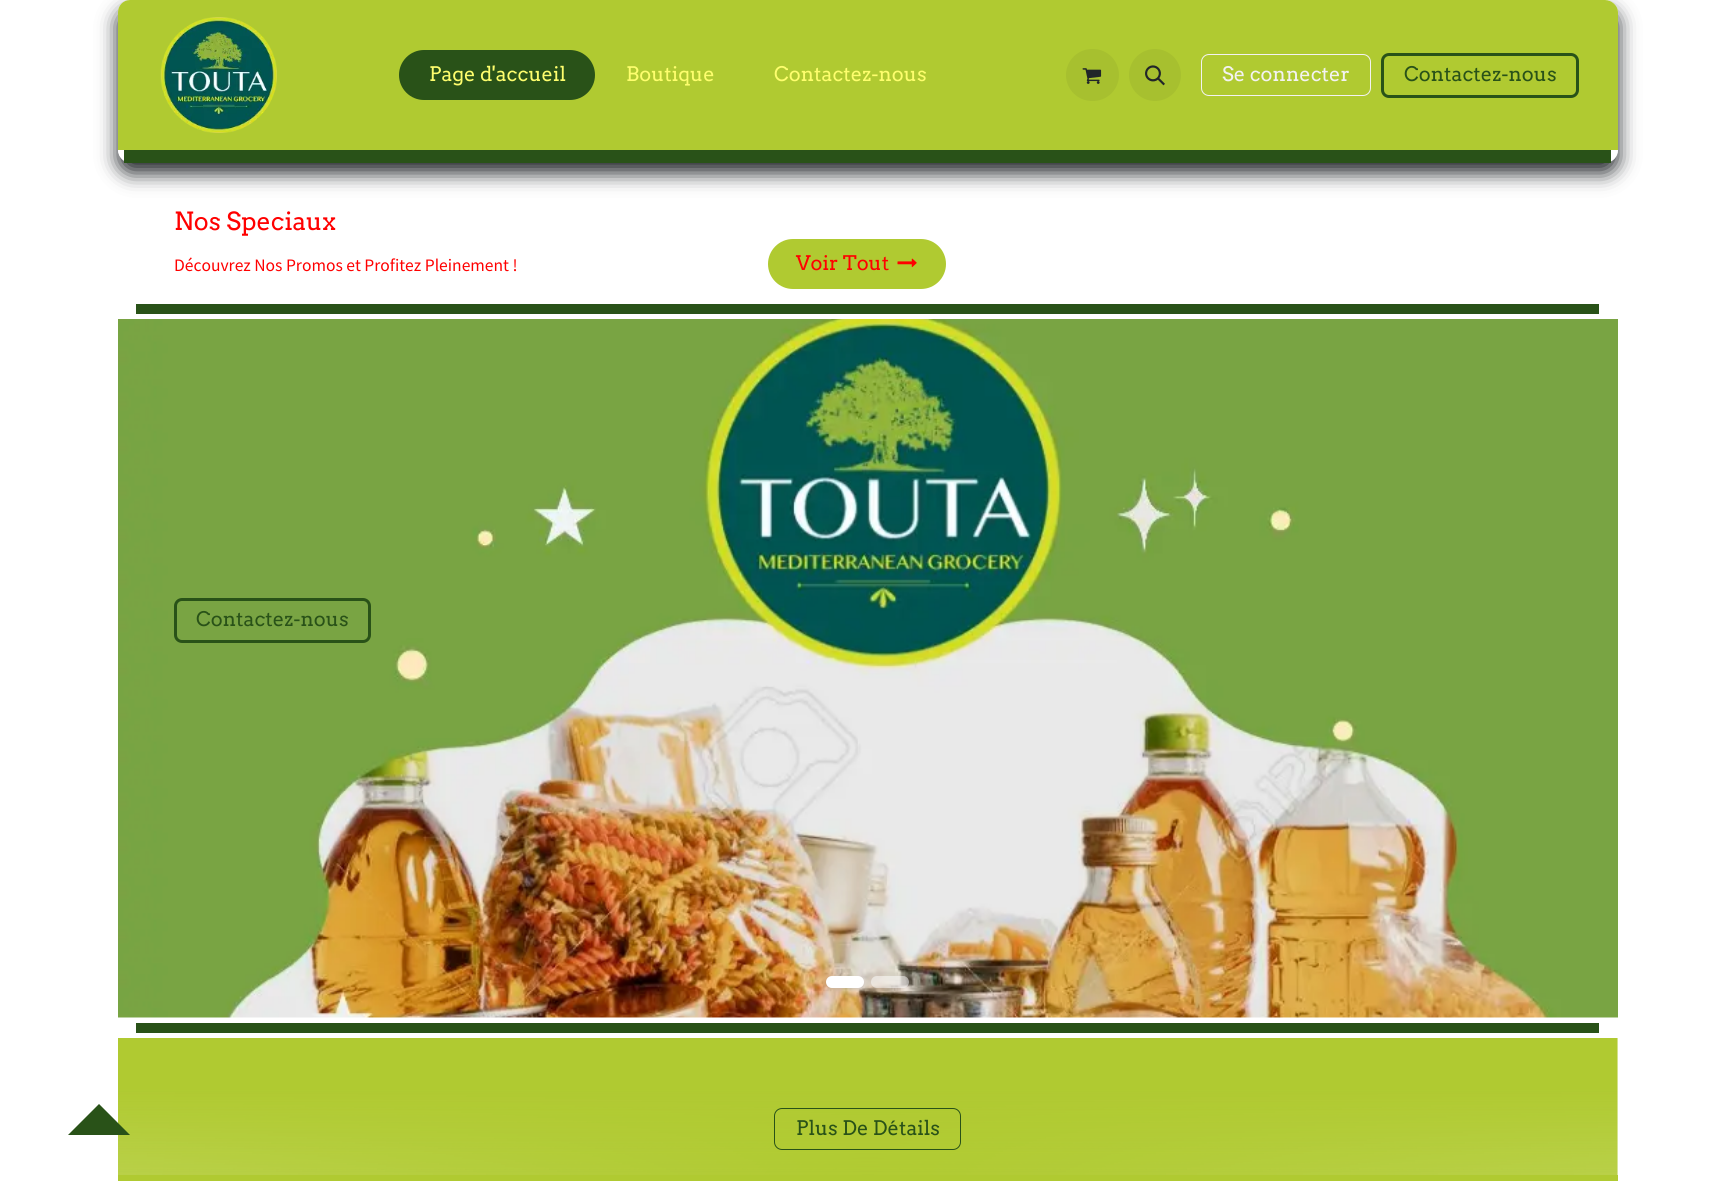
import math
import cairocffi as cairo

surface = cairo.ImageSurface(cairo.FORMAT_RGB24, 1735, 1181)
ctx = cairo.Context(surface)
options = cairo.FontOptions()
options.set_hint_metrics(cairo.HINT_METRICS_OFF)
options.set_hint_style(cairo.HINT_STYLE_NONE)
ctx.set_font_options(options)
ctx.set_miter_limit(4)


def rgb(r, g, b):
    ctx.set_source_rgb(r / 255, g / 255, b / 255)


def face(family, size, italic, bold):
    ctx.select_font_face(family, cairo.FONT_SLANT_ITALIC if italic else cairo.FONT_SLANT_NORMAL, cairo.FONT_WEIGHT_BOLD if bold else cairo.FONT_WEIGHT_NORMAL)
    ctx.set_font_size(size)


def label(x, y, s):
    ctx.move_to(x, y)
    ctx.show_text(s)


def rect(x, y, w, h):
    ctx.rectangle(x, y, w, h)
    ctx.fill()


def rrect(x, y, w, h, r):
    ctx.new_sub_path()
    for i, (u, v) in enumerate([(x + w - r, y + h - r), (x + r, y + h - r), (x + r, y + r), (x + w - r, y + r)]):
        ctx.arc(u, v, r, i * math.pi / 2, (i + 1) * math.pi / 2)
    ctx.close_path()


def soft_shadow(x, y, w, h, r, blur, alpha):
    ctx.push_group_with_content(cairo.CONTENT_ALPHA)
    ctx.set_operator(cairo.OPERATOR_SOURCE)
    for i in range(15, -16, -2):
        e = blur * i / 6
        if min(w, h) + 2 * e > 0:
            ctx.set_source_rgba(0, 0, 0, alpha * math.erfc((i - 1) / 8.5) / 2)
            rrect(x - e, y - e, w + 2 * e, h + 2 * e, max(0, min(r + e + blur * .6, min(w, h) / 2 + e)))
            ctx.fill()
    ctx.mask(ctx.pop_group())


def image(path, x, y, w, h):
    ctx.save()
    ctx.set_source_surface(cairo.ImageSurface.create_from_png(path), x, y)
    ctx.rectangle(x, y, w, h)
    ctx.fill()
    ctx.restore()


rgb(255, 255, 255)
ctx.paint()
ctx.save()
ctx.set_fill_rule(cairo.FILL_RULE_EVEN_ODD)
ctx.new_path()
ctx.move_to(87, 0)
ctx.line_to(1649, 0)
ctx.line_to(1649, 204)
ctx.line_to(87, 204)
ctx.close_path()
ctx.move_to(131, 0)
ctx.line_to(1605, 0)
ctx.curve_to(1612, 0, 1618, 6, 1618, 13)
ctx.line_to(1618, 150)
ctx.curve_to(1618, 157, 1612, 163, 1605, 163)
ctx.line_to(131, 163)
ctx.curve_to(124, 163, 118, 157, 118, 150)
ctx.line_to(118, 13)
ctx.curve_to(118, 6, 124, 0, 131, 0)
ctx.close_path()
ctx.clip()
rgb(33, 37, 41)
soft_shadow(118, 10, 1500, 163, 13, 10, 1)
ctx.restore()
rgb(176, 202, 49)
ctx.new_path()
ctx.move_to(130, 0)
ctx.line_to(1605, 0)
ctx.curve_to(1612, 0, 1618, 6, 1618, 12)
ctx.line_to(1618, 150)
ctx.line_to(118, 150)
ctx.line_to(118, 12)
ctx.curve_to(118, 6, 123, 0, 130, 0)
ctx.close_path()
ctx.fill()
rgb(41, 82, 24)
rect(124, 150, 1487, 13)
image('image0.png', 160, 17, 117, 116)
rrect(399, 50, 196, 50, 25)
ctx.fill()
face('Arvo', 20, 0, 0)
rgb(254, 254, 109)
label(429, 81, 'Page d\'accueil')
label(626, 81, 'Boutique')
label(774, 81, 'Contactez-nous')
rgb(167, 192, 47)
rrect(1066, 49, 53, 52, 26)
ctx.fill()
image('image1.png', 1082, 68, 20, 16)
ctx.arc(1155, 75, 26, 0, 2 * math.pi)
ctx.fill()
image('image2.png', 1145, 65, 20, 21)
rrect(1201.5, 54.5, 169, 41, 7.5)
rgb(243, 242, 242)
ctx.set_line_width(1)
ctx.stroke()
label(1222, 81, 'Se connecter')
rrect(1382.5, 54.5, 195, 42, 6.5)
rgb(41, 82, 24)
ctx.set_line_width(3)
ctx.stroke()
label(1404, 81, 'Contactez-nous')
image('image5.png', 118, 1038, 1500, 137)
ctx.new_path()
ctx.move_to(130, 1135)
ctx.line_to(68, 1135)
ctx.line_to(99, 1104)
ctx.close_path()
ctx.fill()
face('Arvo', 25, 0, 0)
rgb(255, 0, 0)
label(174, 230, 'Nos Speciaux')
face('Source Sans Pro', 17.5, 0, 0)
label(174, 271, 'Découvrez Nos Promos et Profitez Pleinement !')
rgb(176, 202, 49)
rrect(768, 239, 178, 50, 25)
ctx.fill()
face('Arvo', 20, 0, 0)
rgb(255, 0, 0)
label(796, 270, 'Voir Tout')
image('image3.png', 897, 258, 20, 10)
rgb(41, 82, 24)
rect(136, 304, 1463, 10)
image('image4.png', 118, 319, 1500, 699)
rrect(175.5, 599.5, 194, 42, 6.5)
ctx.stroke()
label(196, 626, 'Contactez-nous')
rgb(0, 0, 0)
soft_shadow(826, 978, 38, 11, 5.5, 2, 0.1)
rgb(255, 255, 255)
rrect(826, 976, 38, 12, 6)
ctx.fill()
ctx.set_source_rgba(1, 1, 1, 0.5)
rrect(871, 976, 38, 12, 6)
ctx.fill()
rgb(41, 82, 24)
rect(136, 1023, 1463, 10)
rrect(774.5, 1108.5, 186, 41, 7.5)
ctx.set_line_width(1)
ctx.stroke()
label(796, 1135, 'Plus De Détails')
rgb(176, 202, 49)
rect(118, 1175, 1500, 6)
surface.write_to_png('render.png')
